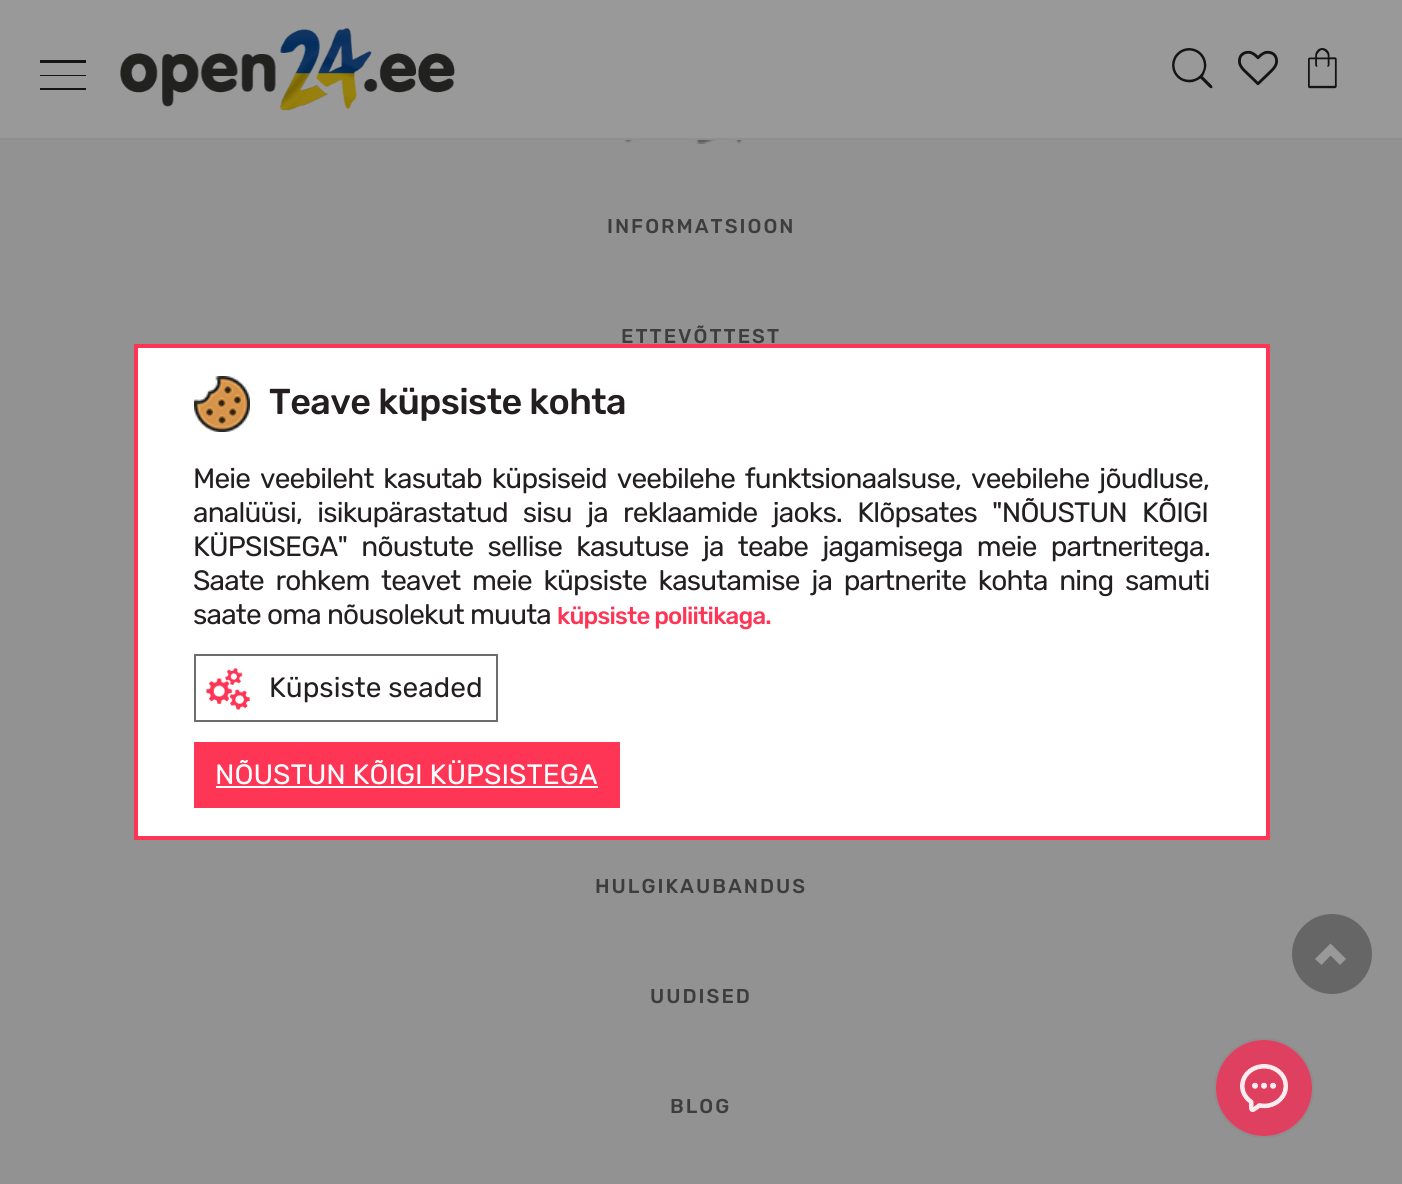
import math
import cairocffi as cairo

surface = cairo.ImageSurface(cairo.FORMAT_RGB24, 1402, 1184)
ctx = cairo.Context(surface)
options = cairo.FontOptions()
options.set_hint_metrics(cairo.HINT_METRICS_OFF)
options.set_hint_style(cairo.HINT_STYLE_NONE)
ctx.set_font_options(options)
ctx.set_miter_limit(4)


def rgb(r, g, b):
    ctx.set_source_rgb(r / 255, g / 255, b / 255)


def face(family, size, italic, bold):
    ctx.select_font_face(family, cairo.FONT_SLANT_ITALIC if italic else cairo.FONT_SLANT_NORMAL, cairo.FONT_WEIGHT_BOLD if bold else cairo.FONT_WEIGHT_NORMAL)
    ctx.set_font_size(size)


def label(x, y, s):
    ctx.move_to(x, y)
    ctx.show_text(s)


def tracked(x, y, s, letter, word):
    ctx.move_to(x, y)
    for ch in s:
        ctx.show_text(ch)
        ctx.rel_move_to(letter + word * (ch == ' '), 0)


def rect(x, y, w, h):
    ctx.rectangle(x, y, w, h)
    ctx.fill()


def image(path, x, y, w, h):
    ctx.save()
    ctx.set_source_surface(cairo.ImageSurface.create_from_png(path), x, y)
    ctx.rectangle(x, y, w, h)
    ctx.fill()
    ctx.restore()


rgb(146, 146, 146)
ctx.paint()
rgb(153, 153, 153)
rect(0, 0, 1402, 138)
rgb(143, 143, 143)
rect(0, 138, 1402, 2)
rgb(20, 20, 20)
ctx.new_path()
ctx.move_to(40, 60)
ctx.line_to(40, 63)
ctx.line_to(86, 63)
ctx.line_to(86, 60)
ctx.close_path()
ctx.move_to(40, 76)
ctx.line_to(86, 76)
ctx.line_to(86, 75)
ctx.line_to(40, 75)
ctx.close_path()
ctx.move_to(40, 90)
ctx.line_to(86, 90)
ctx.line_to(86, 88)
ctx.line_to(40, 88)
ctx.close_path()
ctx.fill()
image('image0.png', 120, 28, 335, 83)
image('image1.png', 1172, 48, 41, 41)
image('image2.png', 1238, 50, 40, 36)
image('image3.png', 1308, 48, 29, 41)
image('image4.png', 623, 140, 120, 4)
face('Rubik Medium', 20, 0, 0)
rgb(61, 61, 61)
tracked(607, 233, 'INFORMATSIOON', 2, 0)
tracked(621, 343, 'ETTEVÕTTEST', 2, 0)
tracked(595, 893, 'HULGIKAUBANDUS', 2, 0)
tracked(650, 1003, 'UUDISED', 2, 0)
tracked(670, 1113, 'BLOG', 2, 0)
rgb(255, 255, 255)
ctx.rectangle(136, 346, 1132, 492)
ctx.fill_preserve()
rgb(255, 53, 86)
ctx.set_line_width(4)
ctx.stroke()
image('image5.png', 194, 376, 56, 56)
face('Rubik Medium', 36, 0, 0)
rgb(35, 31, 32)
tracked(269, 414, 'Teave küpsiste kohta', -0.6, 0)
face('Rubik Light', 28, 0, 0)
tracked(193, 488, 'Meie veebileht kasutab küpsiseid veebilehe funktsionaalsuse, veebilehe jõudluse,', -0.8, 3.75)
tracked(193, 522, 'analüüsi, isikupärastatud sisu ja reklaamide jaoks. Klõpsates "NÕUSTUN KÕIGI', -0.8, 9)
tracked(193, 556, 'KÜPSISEGA" nõustute sellise kasutuse ja teabe jagamisega meie partneritega.', -0.8, 8)
tracked(193, 590, 'Saate rohkem teavet meie küpsiste kasutamise ja partnerite kohta ning samuti', -0.8, 5.5)
tracked(193, 624, 'saate oma nõusolekut muuta', -0.8, 0)
face('Rubik Medium', 24, 0, 0)
rgb(255, 53, 86)
tracked(557, 624, 'küpsiste poliitikaga.', -0.8, 0)
ctx.rectangle(195, 655, 302, 66)
rgb(110, 109, 109)
ctx.set_line_width(2)
ctx.stroke()
image('image6.png', 206, 668, 44, 42)
face('Rubik Light', 28, 0, 0)
rgb(35, 31, 32)
label(269, 697, 'Küpsiste seaded')
rgb(255, 53, 86)
rect(194, 742, 426, 66)
rgb(255, 255, 255)
label(215, 784, 'NÕUSTUN KÕIGI KÜPSISTEGA')
rect(216, 786, 382, 2)
rgb(102, 102, 102)
ctx.new_path()
ctx.arc(1332, 954, 40, 0, 2 * math.pi)
ctx.fill()
rgb(153, 153, 153)
ctx.new_path()
ctx.move_to(1315, 959)
ctx.line_to(1321.5, 965)
ctx.line_to(1330.5, 955.5)
ctx.line_to(1340, 965)
ctx.line_to(1346, 959)
ctx.line_to(1330.5, 943.5)
ctx.close_path()
ctx.fill()
ctx.arc(1264, 1088, 49, 0, 2 * math.pi)
rgb(140, 140, 141)
ctx.stroke()
rgb(224, 64, 96)
ctx.arc(1264, 1088, 48, 0, 2 * math.pi)
ctx.fill()
image('image7.png', 1240, 1064, 48, 48)
surface.write_to_png('render.png')
